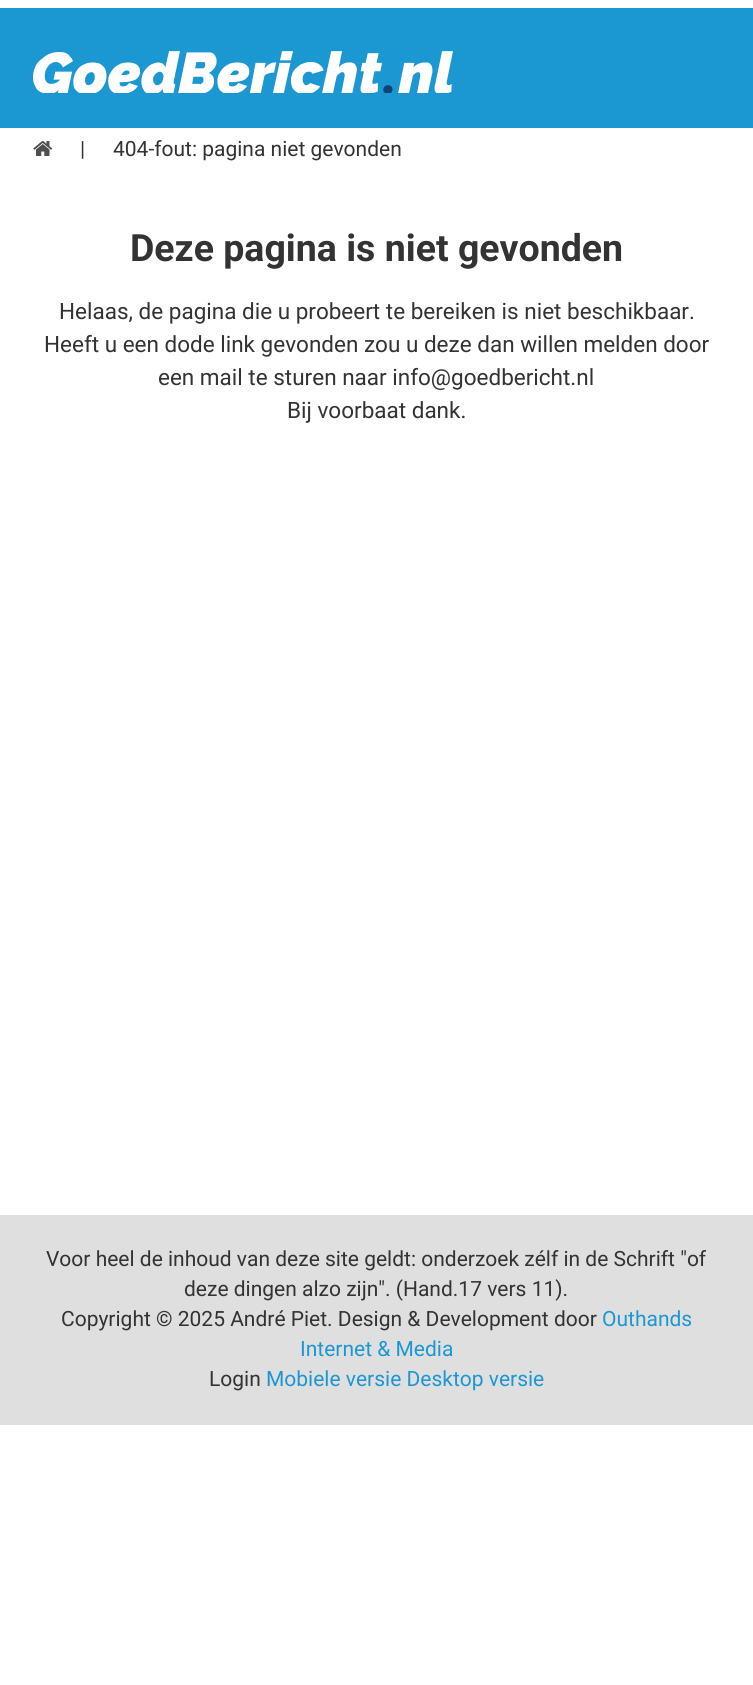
import math
import cairocffi as cairo

surface = cairo.ImageSurface(cairo.FORMAT_RGB24, 753, 1685)
ctx = cairo.Context(surface)
options = cairo.FontOptions()
options.set_hint_metrics(cairo.HINT_METRICS_OFF)
options.set_hint_style(cairo.HINT_STYLE_NONE)
ctx.set_font_options(options)
ctx.set_miter_limit(4)


def rgb(r, g, b):
    ctx.set_source_rgb(r / 255, g / 255, b / 255)


def face(family, size, italic, bold):
    ctx.select_font_face(family, cairo.FONT_SLANT_ITALIC if italic else cairo.FONT_SLANT_NORMAL, cairo.FONT_WEIGHT_BOLD if bold else cairo.FONT_WEIGHT_NORMAL)
    ctx.set_font_size(size)


def label(x, y, s):
    ctx.move_to(x, y)
    ctx.show_text(s)


def rect(x, y, w, h):
    ctx.rectangle(x, y, w, h)
    ctx.fill()


def image(path, x, y, w, h):
    ctx.save()
    ctx.set_source_surface(cairo.ImageSurface.create_from_png(path), x, y)
    ctx.rectangle(x, y, w, h)
    ctx.fill()
    ctx.restore()


rgb(255, 255, 255)
ctx.paint()
rgb(27, 151, 210)
rect(0, 8, 753, 120)
image('image0.png', 33, 51, 420, 42)
image('image1.png', 33, 141, 20, 15)
face('Roboto', 21, 0, 0)
rgb(51, 51, 51)
label(80, 156, '|')
label(113, 156, '404-fout: pagina niet gevonden')
face('Roboto', 37.5, 0, 1)
label(130, 261, 'Deze pagina is niet gevonden')
face('Roboto', 22.5, 0, 0)
label(59, 319, 'Helaas, de pagina die u probeert te bereiken is niet beschikbaar.')
label(44, 352, 'Heeft u een dode link gevonden zou u deze dan willen melden door')
label(158, 385, 'een mail te sturen naar info@goedbericht.nl')
label(287, 418, 'Bij voorbaat dank.')
rgb(223, 223, 223)
rect(0, 1215, 753, 210)
face('Roboto', 21, 0, 0)
rgb(51, 51, 51)
label(46, 1266, 'Voor heel de inhoud van deze site geldt: onderzoek zélf in de Schrift "of')
label(184, 1296, 'deze dingen alzo zijn". (Hand.17 vers 11).')
label(61, 1326, 'Copyright © 2025 André Piet. Design & Development door')
rgb(27, 151, 210)
label(602, 1326, 'Outhands')
label(300, 1356, 'Internet & Media')
rgb(51, 51, 51)
label(209, 1386, 'Login')
rgb(27, 151, 210)
label(266, 1386, 'Mobiele versie Desktop versie')
surface.write_to_png('render.png')
